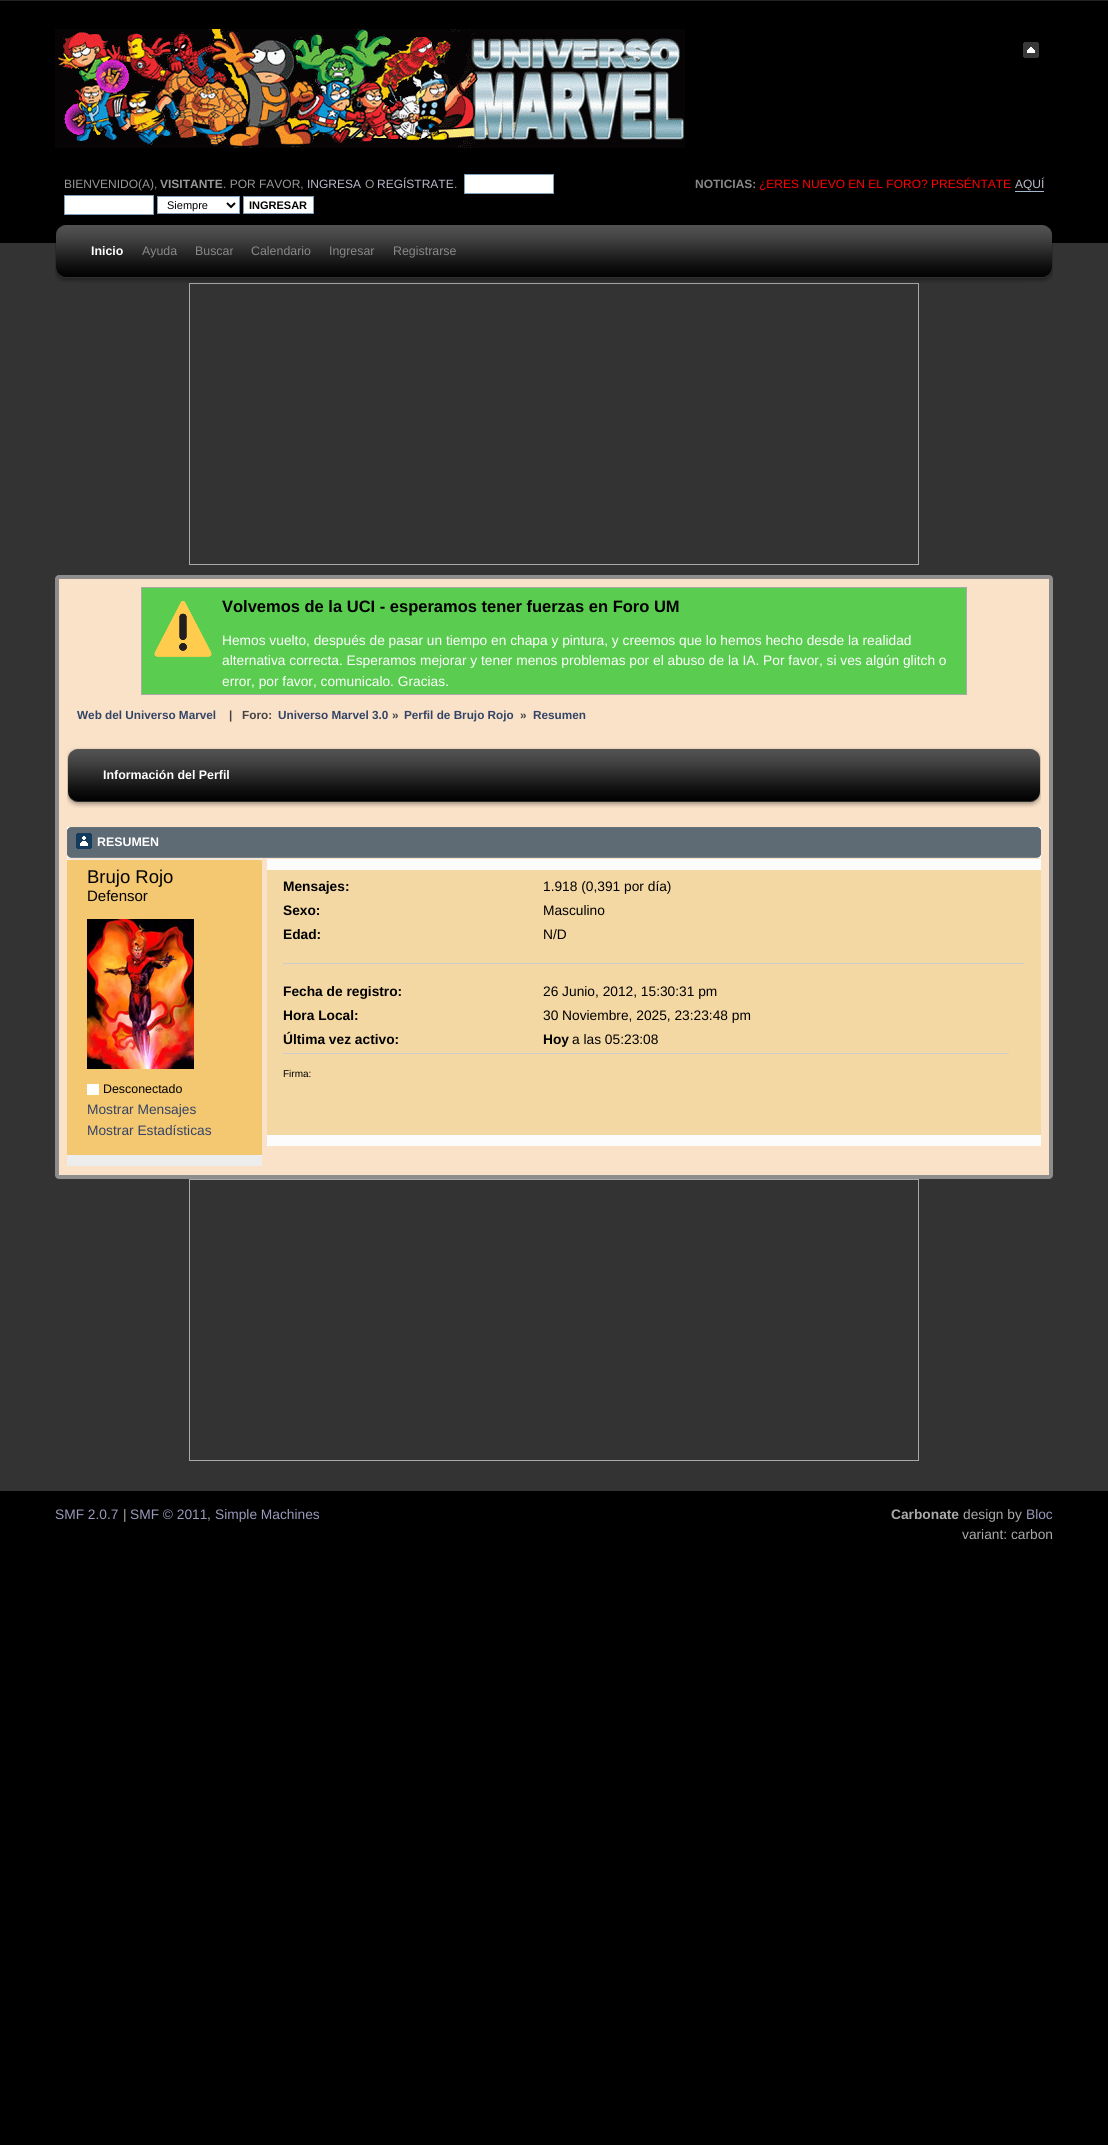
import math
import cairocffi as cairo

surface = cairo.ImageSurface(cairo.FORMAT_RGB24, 1108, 2145)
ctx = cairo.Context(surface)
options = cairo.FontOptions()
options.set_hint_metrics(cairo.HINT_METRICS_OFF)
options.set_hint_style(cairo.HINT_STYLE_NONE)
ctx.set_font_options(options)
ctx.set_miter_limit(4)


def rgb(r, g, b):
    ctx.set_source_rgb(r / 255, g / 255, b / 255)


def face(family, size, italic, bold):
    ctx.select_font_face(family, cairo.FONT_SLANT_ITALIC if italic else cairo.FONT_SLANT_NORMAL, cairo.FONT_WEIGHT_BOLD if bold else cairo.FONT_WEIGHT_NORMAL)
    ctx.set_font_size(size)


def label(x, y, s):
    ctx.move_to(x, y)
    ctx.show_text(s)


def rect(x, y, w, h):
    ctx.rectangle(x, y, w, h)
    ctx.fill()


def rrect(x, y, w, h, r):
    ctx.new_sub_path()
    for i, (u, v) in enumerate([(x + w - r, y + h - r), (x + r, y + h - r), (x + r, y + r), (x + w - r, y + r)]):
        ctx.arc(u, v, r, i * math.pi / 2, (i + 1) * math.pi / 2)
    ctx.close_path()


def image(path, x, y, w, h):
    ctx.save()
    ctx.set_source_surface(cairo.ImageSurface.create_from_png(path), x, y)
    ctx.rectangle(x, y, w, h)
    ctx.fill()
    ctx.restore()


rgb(0, 0, 0)
ctx.paint()
rgb(34, 34, 34)
rect(0, 0, 1108, 1)
image('image0.png', 55, 29, 630, 119)
image('image1.png', 1023, 42, 16, 16)
face('Liberation Sans', 12, 0, 0)
rgb(153, 153, 153)
label(64, 188, 'BIENVENIDO(A),')
face('Liberation Sans', 12, 0, 1)
label(160, 188, 'VISITANTE')
face('Liberation Sans', 12, 0, 0)
label(223, 188, '. POR FAVOR,')
rgb(187, 187, 204)
label(307, 188, 'INGRESA')
rgb(153, 153, 153)
label(365, 188, 'O')
rgb(187, 187, 204)
label(377, 188, 'REGÍSTRATE')
rgb(153, 153, 153)
label(454, 188, '.')
rgb(255, 255, 255)
ctx.rectangle(464.5, 174.5, 89, 19)
ctx.fill_preserve()
rgb(127, 157, 185)
ctx.set_line_width(1)
ctx.stroke()
rgb(255, 255, 255)
ctx.rectangle(64.5, 195.5, 89, 19)
ctx.fill_preserve()
rgb(127, 157, 185)
ctx.stroke()
rgb(255, 255, 255)
ctx.rectangle(157.5, 196.5, 82, 17)
ctx.fill_preserve()
rgb(127, 157, 185)
ctx.stroke()
ctx.new_path()
ctx.move_to(227, 203)
ctx.line_to(231, 207)
ctx.line_to(235, 203)
rgb(0, 0, 0)
ctx.set_line_width(2)
ctx.stroke()
face('Liberation Sans', 11, 0, 0)
label(167, 209, 'Siempre')
rgb(255, 255, 255)
ctx.rectangle(243.5, 196.5, 70, 17)
ctx.fill_preserve()
rgb(127, 157, 185)
ctx.set_line_width(1)
ctx.stroke()
face('Liberation Sans', 11, 0, 1)
rgb(0, 0, 0)
label(249, 209, 'INGRESAR')
face('Liberation Sans', 12, 0, 1)
rgb(136, 136, 136)
label(695, 188, 'NOTICIAS:')
face('Liberation Sans', 12, 0, 0)
rgb(255, 0, 0)
label(759, 188, '¿ERES NUEVO EN EL FORO? PRESÉNTATE')
rgb(187, 187, 204)
label(1015, 188, 'AQUÍ')
rgb(168, 182, 207)
rect(1015, 191, 29, 1)
rgb(51, 51, 51)
rect(0, 243, 1108, 1248)
image('image2.png', 1024, 225, 29, 57)
image('image3.png', 55, 225, 26, 57)
ctx.rectangle(189.5, 283.5, 729, 281)
rgb(169, 169, 169)
ctx.stroke()
image('image4.png', 81, 225, 943, 59)
face('Liberation Sans', 12.4, 0, 1)
rgb(255, 255, 255)
label(91, 255, 'Inicio')
face('Liberation Sans', 12.4, 0, 0)
rgb(136, 136, 136)
label(142, 255, 'Ayuda')
label(195, 255, 'Buscar')
label(251, 255, 'Calendario')
label(329, 255, 'Ingresar')
label(393, 255, 'Registrarse')
rgb(250, 226, 200)
rrect(57, 577, 994, 600, 2)
ctx.fill_preserve()
rgb(142, 140, 140)
ctx.set_line_width(4)
ctx.stroke()
rgb(90, 205, 80)
rect(142, 588, 824, 106)
image('image5.png', 154, 601, 58, 56)
ctx.rectangle(141.5, 587.5, 825, 107)
rgb(169, 169, 169)
ctx.set_line_width(1)
ctx.stroke()
face('Liberation Sans', 16.5, 0, 1)
rgb(0, 0, 0)
label(222, 612, 'Volvemos de la UCI - esperamos tener fuerzas en Foro UM')
face('Liberation Sans', 13.75, 0, 0)
rgb(255, 255, 255)
label(222, 645, 'Hemos vuelto, después de pasar un tiempo en chapa y pintura, y creemos que lo hemos hecho desde la realidad')
label(222, 665, 'alternativa correcta. Esperamos mejorar y tener menos problemas por el abuso de la IA. Por favor, si ves algún glitch o')
label(222, 686, 'error, por favor, comunicalo. Gracias.')
face('Liberation Sans', 11.75, 0, 1)
rgb(51, 68, 102)
label(77, 719, 'Web del Universo Marvel')
rgb(68, 68, 68)
label(229, 719, '|   Foro:')
rgb(51, 68, 102)
label(278, 719, 'Universo Marvel 3.0')
rgb(68, 68, 68)
label(392, 719, '»')
rgb(51, 68, 102)
label(404, 719, 'Perfil de Brujo Rojo')
rgb(68, 68, 68)
label(520, 719, '»')
rgb(51, 68, 102)
label(533, 719, 'Resumen')
image('image6.png', 1012, 747, 29, 61)
image('image7.png', 67, 747, 26, 61)
image('image8.png', 93, 747, 919, 61)
face('Liberation Sans', 12.4, 0, 1)
rgb(255, 255, 255)
label(103, 779, 'Información del Perfil')
image('image9.png', 67, 827, 970, 31)
image('image10.png', 1037, 827, 4, 31)
image('image11.png', 76, 833, 16, 16)
label(97, 846, 'RESUMEN')
rgb(244, 199, 113)
rect(67, 860, 195, 295)
image('image12.png', 67, 859, 193, 1)
image('image13.png', 260, 859, 2, 1)
face('Liberation Sans', 18.5, 0, 0)
rgb(0, 0, 0)
label(87, 883, 'Brujo Rojo')
face('Liberation Sans', 15, 0, 0)
label(87, 901, 'Defensor')
image('image14.png', 87, 919, 107, 150)
rgb(255, 255, 255)
rect(87, 1084, 12, 11)
face('Liberation Sans', 12.4, 0, 0)
rgb(0, 0, 0)
label(103, 1093, 'Desconectado')
face('Liberation Sans', 13.75, 0, 0)
rgb(51, 68, 102)
label(87, 1114, 'Mostrar Mensajes')
label(87, 1135, 'Mostrar Estadísticas')
rgb(237, 237, 237)
rect(67, 1155, 195, 11)
rgb(244, 216, 164)
rect(267, 870, 774, 265)
rgb(252, 252, 252)
rect(267, 859, 774, 11)
rgb(204, 204, 204)
rect(283, 963, 741, 1)
face('Liberation Sans', 13.75, 0, 1)
rgb(0, 0, 0)
label(283, 891, 'Mensajes:')
face('Liberation Sans', 13.75, 0, 0)
label(543, 891, '1.918 (0,391 por día)')
face('Liberation Sans', 13.75, 0, 1)
label(283, 915, 'Sexo:')
face('Liberation Sans', 13.75, 0, 0)
label(543, 915, 'Masculino')
face('Liberation Sans', 13.75, 0, 1)
label(283, 939, 'Edad:')
face('Liberation Sans', 13.75, 0, 0)
label(543, 939, 'N/D')
face('Liberation Sans', 13.75, 0, 1)
label(283, 996, 'Fecha de registro:')
face('Liberation Sans', 13.75, 0, 0)
label(543, 996, '26 Junio, 2012, 15:30:31 pm')
face('Liberation Sans', 13.75, 0, 1)
label(283, 1020, 'Hora Local:')
face('Liberation Sans', 13.75, 0, 0)
label(543, 1020, '30 Noviembre, 2025, 23:23:48 pm')
face('Liberation Sans', 13.75, 0, 1)
label(283, 1044, 'Última vez activo:')
label(543, 1044, 'Hoy')
face('Liberation Sans', 13.75, 0, 0)
label(572, 1044, 'a las 05:23:08')
rgb(204, 204, 204)
rect(283, 1053, 726, 1)
face('Liberation Sans', 10, 0, 0)
rgb(0, 0, 0)
label(283, 1077, 'Firma:')
rgb(252, 252, 252)
rect(267, 1135, 774, 11)
ctx.rectangle(189.5, 1179.5, 729, 281)
rgb(169, 169, 169)
ctx.stroke()
face('Liberation Sans', 13.75, 0, 0)
rgb(153, 153, 187)
label(55, 1519, 'SMF 2.0.7')
rgb(170, 170, 170)
label(123, 1519, '|')
rgb(153, 153, 187)
label(130, 1519, 'SMF © 2011')
rgb(170, 170, 170)
label(207, 1519, ',')
rgb(153, 153, 187)
label(215, 1519, 'Simple Machines')
face('Liberation Sans', 13.75, 0, 1)
rgb(170, 170, 170)
label(891, 1519, 'Carbonate')
face('Liberation Sans', 13.75, 0, 0)
label(963, 1519, 'design by')
rgb(153, 153, 187)
label(1026, 1519, 'Bloc')
rgb(170, 170, 170)
label(962, 1539, 'variant: carbon')
surface.write_to_png('render.png')
